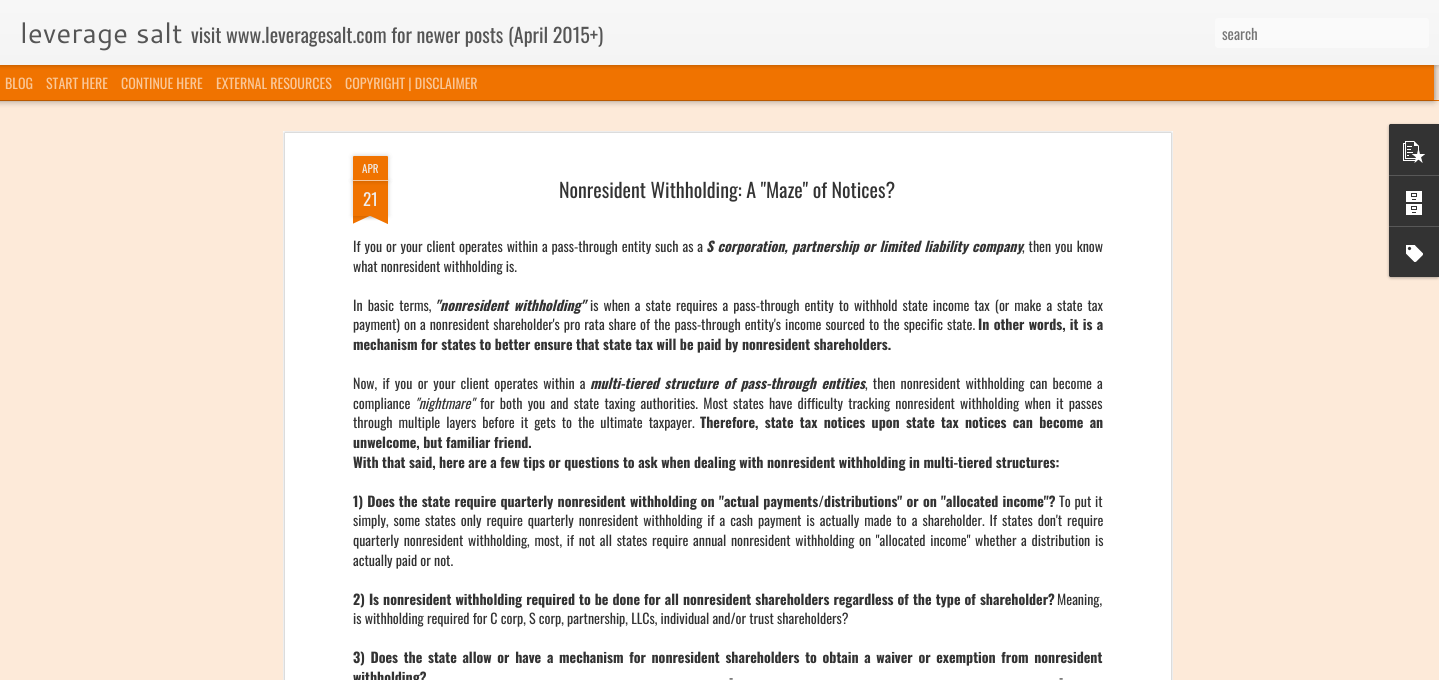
import math
import cairocffi as cairo

surface = cairo.ImageSurface(cairo.FORMAT_RGB24, 1439, 680)
ctx = cairo.Context(surface)
options = cairo.FontOptions()
options.set_hint_metrics(cairo.HINT_METRICS_OFF)
options.set_hint_style(cairo.HINT_STYLE_NONE)
ctx.set_font_options(options)
ctx.set_miter_limit(4)


def rgb(r, g, b):
    ctx.set_source_rgb(r / 255, g / 255, b / 255)


def face(family, size, italic, bold):
    ctx.select_font_face(family, cairo.FONT_SLANT_ITALIC if italic else cairo.FONT_SLANT_NORMAL, cairo.FONT_WEIGHT_BOLD if bold else cairo.FONT_WEIGHT_NORMAL)
    ctx.set_font_size(size)


def label(x, y, s):
    ctx.move_to(x, y)
    ctx.show_text(s)


def tracked(x, y, s, letter, word):
    ctx.move_to(x, y)
    for ch in s:
        ctx.show_text(ch)
        ctx.rel_move_to(letter + word * (ch == ' '), 0)


def rect(x, y, w, h):
    ctx.rectangle(x, y, w, h)
    ctx.fill()


def rrect(x, y, w, h, r):
    ctx.new_sub_path()
    for i, (u, v) in enumerate([(x + w - r, y + h - r), (x + r, y + h - r), (x + r, y + r), (x + w - r, y + r)]):
        ctx.arc(u, v, r, i * math.pi / 2, (i + 1) * math.pi / 2)
    ctx.close_path()


def soft_shadow(x, y, w, h, r, blur, alpha):
    ctx.push_group_with_content(cairo.CONTENT_ALPHA)
    ctx.set_operator(cairo.OPERATOR_SOURCE)
    for i in range(15, -16, -2):
        e = blur * i / 6
        if min(w, h) + 2 * e > 0:
            ctx.set_source_rgba(0, 0, 0, alpha * math.erfc((i - 1) / 8.5) / 2)
            rrect(x - e, y - e, w + 2 * e, h + 2 * e, max(0, min(r + e + blur * .6, min(w, h) / 2 + e)))
            ctx.fill()
    ctx.mask(ctx.pop_group())


def image(path, x, y, w, h):
    ctx.save()
    ctx.set_source_surface(cairo.ImageSurface.create_from_png(path), x, y)
    ctx.rectangle(x, y, w, h)
    ctx.fill()
    ctx.restore()


rgb(253, 234, 217)
ctx.paint()
rgb(240, 115, 0)
rect(0, 100, 1439, 1)
rgb(0, 0, 0)
soft_shadow(-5, 65, 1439, 35, 0, 4, 0.5)
rgb(240, 115, 0)
rect(0, 65, 1434, 35)
rgb(0, 0, 0)
soft_shadow(0, 0, 1439, 65, 0, 2.5, 0.3)
gradient = cairo.LinearGradient(0, 0, 0, 65)
gradient.add_color_stop_rgba(0, 0.969, 0.969, 0.969, 1)
gradient.add_color_stop_rgba(1, 0.957, 0.957, 0.957, 1)
ctx.set_source(gradient)
rect(0, 0, 1439, 65)
face('Cantarell', 28, 0, 0)
rgb(85, 85, 85)
label(20, 43, 'leverage salt')
face('Oswald', 20, 0, 0)
label(191, 43, 'visit www.leveragesalt.com for newer posts (April 2015+)')
rgb(250, 250, 250)
rrect(1215, 18, 214, 30, 3)
ctx.fill()
face('Oswald', 15, 0, 0)
rgb(117, 117, 117)
label(1222, 40, 'search')
face('Oswald', 14, 0, 0)
rgb(249, 199, 153)
label(5, 89, 'BLOG')
label(46, 89, 'START HERE')
label(121, 89, 'CONTINUE HERE')
label(216, 89, 'EXTERNAL RESOURCES')
label(345, 89, 'COPYRIGHT | DISCLAIMER')
rgb(255, 255, 255)
rect(283, 131, 890, 549)
image('image0.png', 283, 131, 890, 549)
rgb(0, 0, 0)
soft_shadow(353, 181, 35, 35, 0, 2.5, 0.2)
rgb(240, 115, 0)
rect(353, 181, 35, 35)
rgb(0, 0, 0)
soft_shadow(353, 156, 35, 25, 1, 2.5, 0.2)
rgb(240, 115, 0)
ctx.new_path()
ctx.move_to(354, 156)
ctx.line_to(387, 156)
ctx.curve_to(387.5, 156, 388, 156.5, 388, 157)
ctx.line_to(388, 181)
ctx.line_to(353, 181)
ctx.line_to(353, 157)
ctx.curve_to(353, 156.5, 353.5, 156, 354, 156)
ctx.close_path()
ctx.fill()
rgb(249, 199, 153)
rect(353, 180, 35, 1)
face('Oswald', 11, 0, 0)
rgb(238, 238, 238)
label(362, 173, 'APR')
face('Oswald', 17, 0, 0)
label(363, 206, '21')
ctx.save()
ctx.rectangle(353, 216, 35, 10)
ctx.clip()
rgb(0, 0, 0)
soft_shadow(344, 206, 50, 10, 0, 2.5, 0.2)
ctx.restore()
ctx.save()
ctx.rectangle(353, 216, 35, 10)
ctx.clip()
rgb(240, 115, 0)
ctx.new_path()
ctx.move_to(344, 217)
ctx.line_to(389, 196)
ctx.line_to(393, 205)
ctx.line_to(348, 226)
ctx.close_path()
ctx.fill()
ctx.restore()
ctx.save()
ctx.rectangle(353, 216, 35, 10)
ctx.clip()
rgb(0, 0, 0)
soft_shadow(347, 206, 50, 10, 0, 2.5, 0.2)
ctx.restore()
ctx.save()
ctx.rectangle(353, 216, 35, 10)
ctx.clip()
rgb(240, 115, 0)
ctx.new_path()
ctx.move_to(351, 196)
ctx.line_to(396, 217)
ctx.line_to(392, 226)
ctx.line_to(347, 205)
ctx.close_path()
ctx.fill()
ctx.restore()
face('Oswald', 20, 0, 0)
rgb(51, 51, 51)
label(559, 198, 'Nonresident Withholding: A "Maze" of Notices?')
face('Oswald', 14, 0, 0)
tracked(353, 252, 'If you or your client operates within a pass-through entity such as a', 0, 0.75)
face('Oswald', 14, 1, 1)
tracked(706, 252, 'S corporation, partnership or limited liability company', 0, 0.75)
face('Oswald', 14, 0, 0)
tracked(1022, 252, ', then you know', 0, 0.75)
label(353, 272, 'what nonresident withholding is.')
tracked(353, 311, 'In basic terms,', 0, 2)
face('Oswald', 14, 1, 1)
tracked(435, 311, '"nonresident withholding"', 0, 2)
face('Oswald', 14, 0, 0)
tracked(590, 311, 'is when a state requires a pass-through entity to withhold state income tax (or make a state tax', 0, 1.75)
tracked(353, 330, 'payment) on a nonresident shareholder\'s pro rata share of the pass-through entity\'s income sourced to the specific state.', 0, 0.75)
face('Oswald', 14, 0, 1)
tracked(978, 330, 'In other words, it is a', 0, 0.75)
label(353, 350, 'mechanism for states to better ensure that state tax will be paid by nonresident shareholders.')
face('Oswald', 14, 0, 0)
tracked(353, 389, 'Now, if you or your client operates within a', 0, 2)
face('Oswald', 14, 1, 1)
tracked(590, 389, 'multi-tiered structure of pass-through entities', 0, 2)
face('Oswald', 14, 0, 0)
tracked(865, 389, ', then nonresident withholding can become a', 0, 2)
label(353, 409, 'compliance')
face('Oswald', 14, 1, 0)
label(415, 409, '"nightmare"')
face('Oswald', 14, 0, 0)
tracked(480, 409, 'for both you and state taxing authorities. Most states have difficulty tracking nonresident withholding when it passes', 0, 2)
tracked(353, 428, 'through multiple layers before it gets to the ultimate taxpayer.', 0, 2.75)
face('Oswald', 14, 0, 1)
tracked(700, 428, 'Therefore, state tax notices upon state tax notices can become an', 0, 2.75)
label(353, 448, 'unwelcome, but familiar friend.')
label(353, 468, 'With that said, here are a few tips or questions to ask when dealing with nonresident withholding in multi-tiered structures:')
tracked(353, 507, '1) Does the state require quarterly nonresident withholding on "actual payments/distributions" or on "allocated income"?', 0, 0.6)
face('Oswald', 14, 0, 0)
tracked(1059, 507, 'To put it', 0, 0.6)
tracked(353, 526, 'simply, some states only require quarterly nonresident withholding if a cash payment is actually made to a shareholder. If states don\'t require', 0, 1.75)
tracked(353, 546, 'quarterly nonresident withholding, most, if not all states require annual nonresident withholding on "allocated income" whether a distribution is', 0, 1.5)
label(353, 566, 'actually paid or not.')
face('Oswald', 14, 0, 1)
tracked(353, 605, '2) Is nonresident withholding required to be done for all nonresident shareholders regardless of the type of shareholder?', 0, 0.5)
face('Oswald', 14, 0, 0)
label(1057, 605, 'Meaning,')
label(353, 624, 'is withholding required for C corp, S corp, partnership, LLCs, individual and/or trust shareholders?')
face('Oswald', 14, 0, 1)
tracked(353, 663, '3) Does the state allow or have a mechanism for nonresident shareholders to obtain a waiver or exemption from nonresident', 0, 2.1)
label(353, 683, 'withholding?')
face('Oswald', 14, 0, 0)
tracked(729, 683, '-', 0, 2)
tracked(1059, 683, '-', 0, 2)
rgb(0, 0, 0)
soft_shadow(1389, 125, 50, 153, 2, 1.5, 0.3)
rgb(51, 51, 51)
ctx.new_path()
ctx.move_to(1391, 124)
ctx.line_to(1439, 124)
ctx.line_to(1439, 277)
ctx.line_to(1391, 277)
ctx.curve_to(1390, 277, 1389, 276, 1389, 275)
ctx.line_to(1389, 126)
ctx.curve_to(1389, 125, 1390, 124, 1391, 124)
ctx.close_path()
ctx.fill()
ctx.new_path()
ctx.move_to(1391, 124)
ctx.line_to(1439, 124)
ctx.line_to(1439, 175)
ctx.line_to(1389, 175)
ctx.line_to(1389, 126)
ctx.curve_to(1389, 125, 1390, 124, 1391, 124)
ctx.close_path()
ctx.fill()
image('image1.png', 1403, 141, 22, 22)
rgb(88, 88, 88)
rect(1389, 175, 50, 1)
image('image2.png', 1406, 191, 16, 24)
rgb(51, 51, 51)
ctx.new_path()
ctx.move_to(1389, 226)
ctx.line_to(1439, 226)
ctx.line_to(1439, 277)
ctx.line_to(1391, 277)
ctx.curve_to(1390, 277, 1389, 276, 1389, 275)
ctx.close_path()
ctx.fill()
rgb(88, 88, 88)
rect(1389, 226, 50, 1)
image('image3.png', 1406, 245, 17, 17)
surface.write_to_png('render.png')
